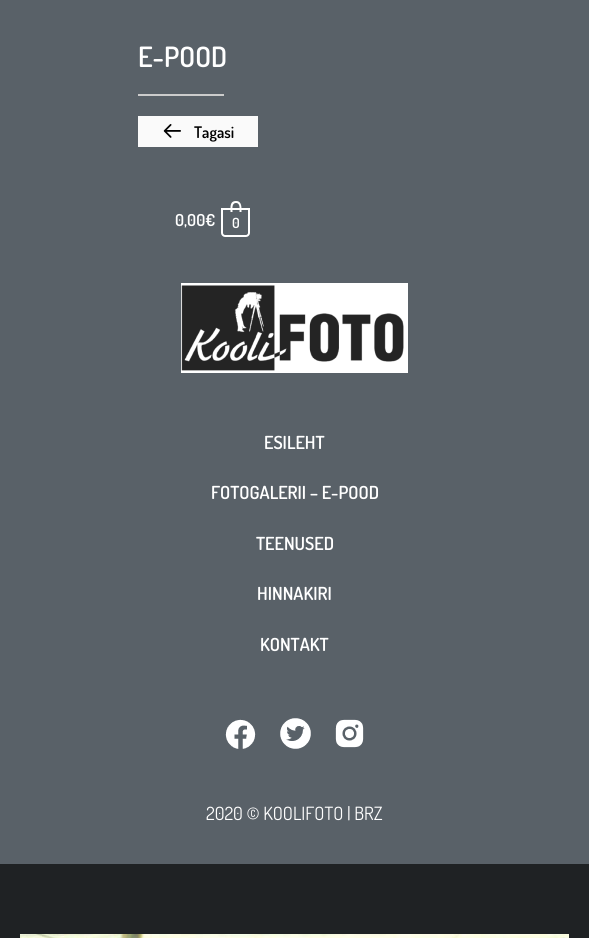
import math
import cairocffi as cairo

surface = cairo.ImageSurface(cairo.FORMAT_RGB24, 589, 938)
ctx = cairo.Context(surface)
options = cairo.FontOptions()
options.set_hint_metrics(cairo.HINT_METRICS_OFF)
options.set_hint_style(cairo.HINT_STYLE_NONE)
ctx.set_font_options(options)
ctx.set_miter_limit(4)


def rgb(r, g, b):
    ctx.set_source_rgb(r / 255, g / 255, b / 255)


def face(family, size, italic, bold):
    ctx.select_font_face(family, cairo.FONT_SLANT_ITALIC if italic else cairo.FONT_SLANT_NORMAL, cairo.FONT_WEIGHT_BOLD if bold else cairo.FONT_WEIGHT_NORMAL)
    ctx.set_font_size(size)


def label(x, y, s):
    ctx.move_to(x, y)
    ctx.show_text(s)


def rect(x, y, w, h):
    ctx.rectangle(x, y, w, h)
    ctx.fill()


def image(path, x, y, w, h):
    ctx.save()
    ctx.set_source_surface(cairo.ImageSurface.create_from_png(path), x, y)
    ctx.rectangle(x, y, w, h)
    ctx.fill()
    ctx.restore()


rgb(89, 97, 104)
ctx.paint()
face('Dosis SemiBold', 28, 0, 0)
rgb(255, 255, 255)
label(138, 67, 'E-POOD')
rgb(204, 204, 204)
rect(138, 94, 86, 2)
rgb(250, 250, 250)
rect(138, 116, 120, 31)
image('image0.png', 163, 124, 18, 14)
face('Dosis SemiBold', 16, 0, 0)
rgb(2, 2, 2)
label(194, 138, 'Tagasi')
face('Dosis SemiBold', 16.5, 0, 0)
rgb(255, 255, 255)
label(175, 226, '0,00€')
ctx.new_path()
ctx.move_to(222, 209)
ctx.line_to(249, 209)
ctx.line_to(249, 233)
ctx.curve_to(249, 234.5, 247.5, 236, 246, 236)
ctx.line_to(225, 236)
ctx.curve_to(223.5, 236, 222, 234.5, 222, 233)
ctx.close_path()
ctx.stroke()
ctx.set_fill_rule(cairo.FILL_RULE_EVEN_ODD)
ctx.new_path()
ctx.move_to(236, 201)
ctx.curve_to(242, 201, 241.5, 207.5, 241.5, 212)
ctx.line_to(230.5, 212)
ctx.curve_to(230.5, 207.5, 229.5, 201, 236, 201)
ctx.close_path()
ctx.move_to(236, 203)
ctx.curve_to(240.5, 203, 239.5, 209, 239.5, 212)
ctx.line_to(232.5, 212)
ctx.curve_to(232.5, 209, 231.5, 203, 236, 203)
ctx.close_path()
ctx.fill()
face('Dosis SemiBold', 14, 0, 0)
label(232, 228, '0')
image('image1.png', 181, 283, 227, 90)
face('Dosis SemiBold', 18, 0, 0)
label(264, 449, 'ESILEHT')
label(211, 499, 'FOTOGALERII – E-POOD')
label(256, 550, 'TEENUSED')
label(257, 600, 'HINNAKIRI')
label(260, 651, 'KONTAKT')
image('image2.png', 225, 719, 31, 30)
image('image3.png', 280, 718, 31, 31)
image('image4.png', 335, 719, 29, 29)
face('Dosis', 18.25, 0, 0)
label(206, 820, '2020 © KOOLIFOTO | BRZ')
rgb(31, 34, 36)
rect(0, 864, 589, 74)
image('image5.png', 20, 934, 549, 4)
surface.write_to_png('render.png')
